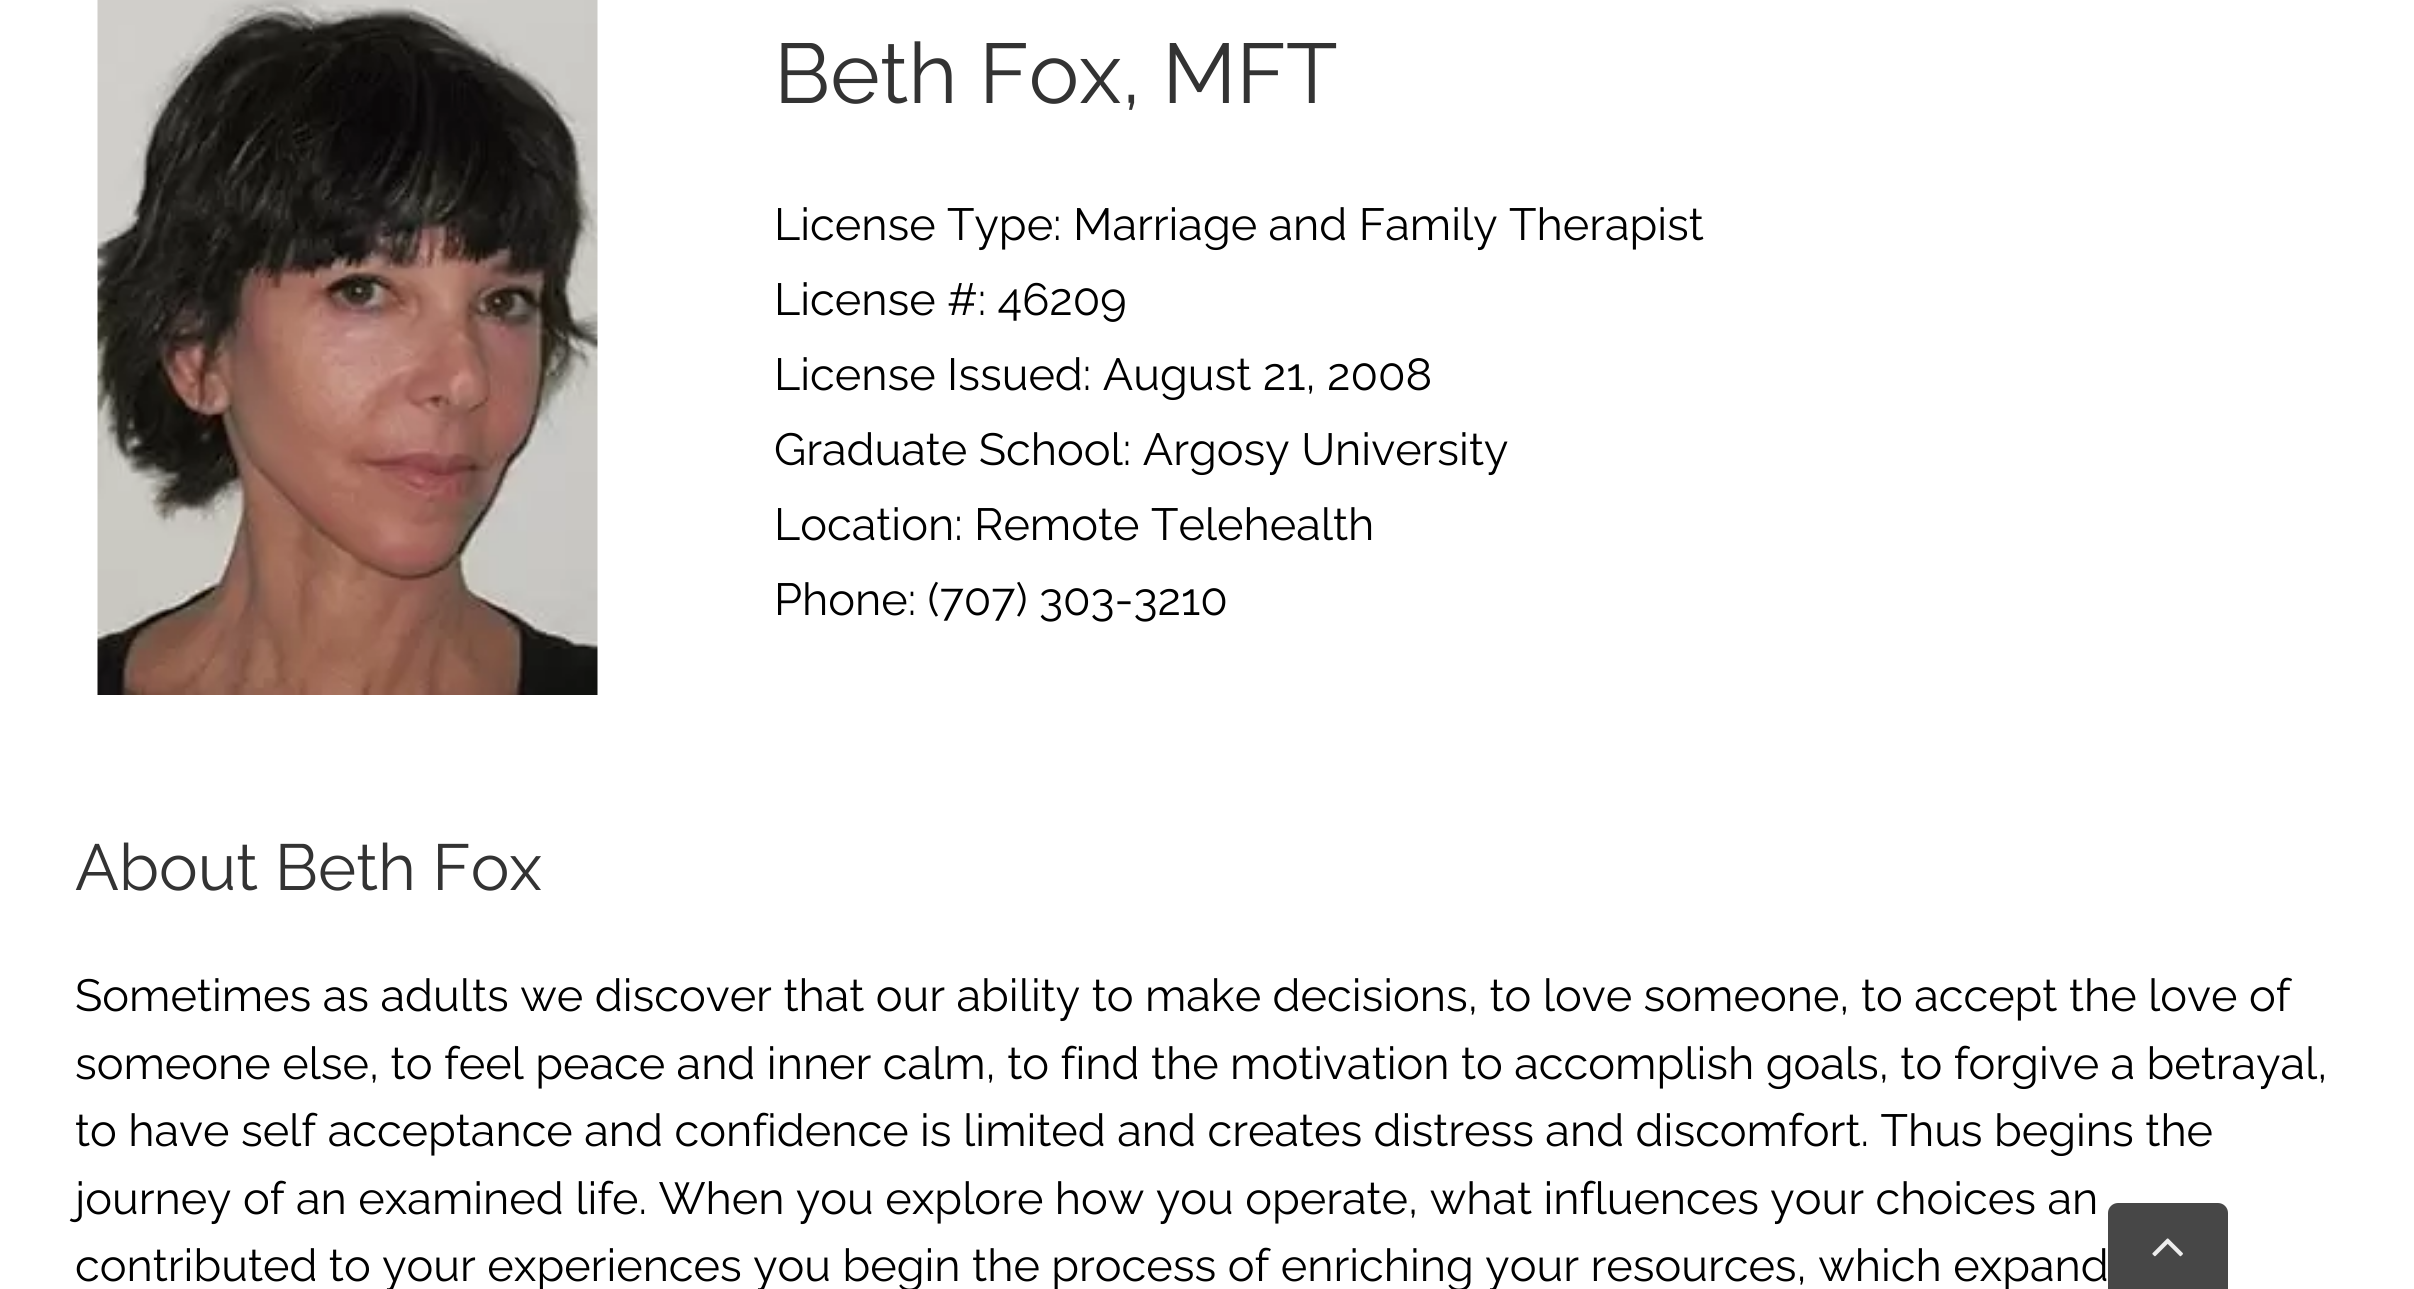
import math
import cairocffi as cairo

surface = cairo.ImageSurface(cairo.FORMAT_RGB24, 2414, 1289)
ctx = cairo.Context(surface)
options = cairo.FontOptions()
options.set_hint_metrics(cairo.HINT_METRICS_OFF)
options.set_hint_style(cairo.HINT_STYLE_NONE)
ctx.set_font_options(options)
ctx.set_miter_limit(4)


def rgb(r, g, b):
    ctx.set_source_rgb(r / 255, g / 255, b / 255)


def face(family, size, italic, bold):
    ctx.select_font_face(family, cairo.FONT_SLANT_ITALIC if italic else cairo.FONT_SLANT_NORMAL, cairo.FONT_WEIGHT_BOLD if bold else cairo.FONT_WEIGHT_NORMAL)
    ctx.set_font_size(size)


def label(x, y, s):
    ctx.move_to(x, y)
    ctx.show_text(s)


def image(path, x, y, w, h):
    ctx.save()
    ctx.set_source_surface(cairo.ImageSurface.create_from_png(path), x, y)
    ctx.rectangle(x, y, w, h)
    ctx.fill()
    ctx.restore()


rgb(255, 255, 255)
ctx.paint()
image('image0.png', 97, 0, 501, 695)
face('Raleway', 84.5, 0, 0)
rgb(51, 51, 51)
label(774, 103, 'Beth Fox, MFT')
face('Raleway', 45, 0, 0)
rgb(0, 0, 0)
label(774, 240, 'License Type: Marriage and Family Therapist')
label(774, 315, 'License #: 46209')
label(774, 390, 'License Issued: August 21, 2008')
label(774, 465, 'Graduate School: Argosy University')
label(774, 540, 'Location: Remote Telehealth')
label(774, 615, 'Phone: (707) 303-3210')
face('Raleway', 65, 0, 0)
rgb(51, 51, 51)
label(75, 890, 'About Beth Fox')
face('Raleway', 45, 0, 0)
rgb(0, 0, 0)
label(75, 1011, 'Sometimes as adults we discover that our ability to make decisions, to love someone, to accept the love of')
label(75, 1079, 'someone else, to feel peace and inner calm, to find the motivation to accomplish goals, to forgive a betrayal,')
label(75, 1146, 'to have self acceptance and confidence is limited and creates distress and discomfort. Thus begins the')
label(75, 1214, 'journey of an examined life. When you explore how you operate, what influences your choices an')
label(75, 1281, 'contributed to your experiences you begin the process of enriching your resources, which expand')
ctx.set_source_rgba(0.2, 0.2, 0.2, 0.9)
ctx.new_path()
ctx.move_to(2118, 1203)
ctx.line_to(2218, 1203)
ctx.curve_to(2223.5, 1203, 2228, 1207.5, 2228, 1213)
ctx.line_to(2228, 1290)
ctx.line_to(2108, 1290)
ctx.line_to(2108, 1213)
ctx.curve_to(2108, 1207.5, 2112.5, 1203, 2118, 1203)
ctx.close_path()
ctx.fill()
image('image1.png', 2152, 1238, 31, 19)
surface.write_to_png('render.png')
